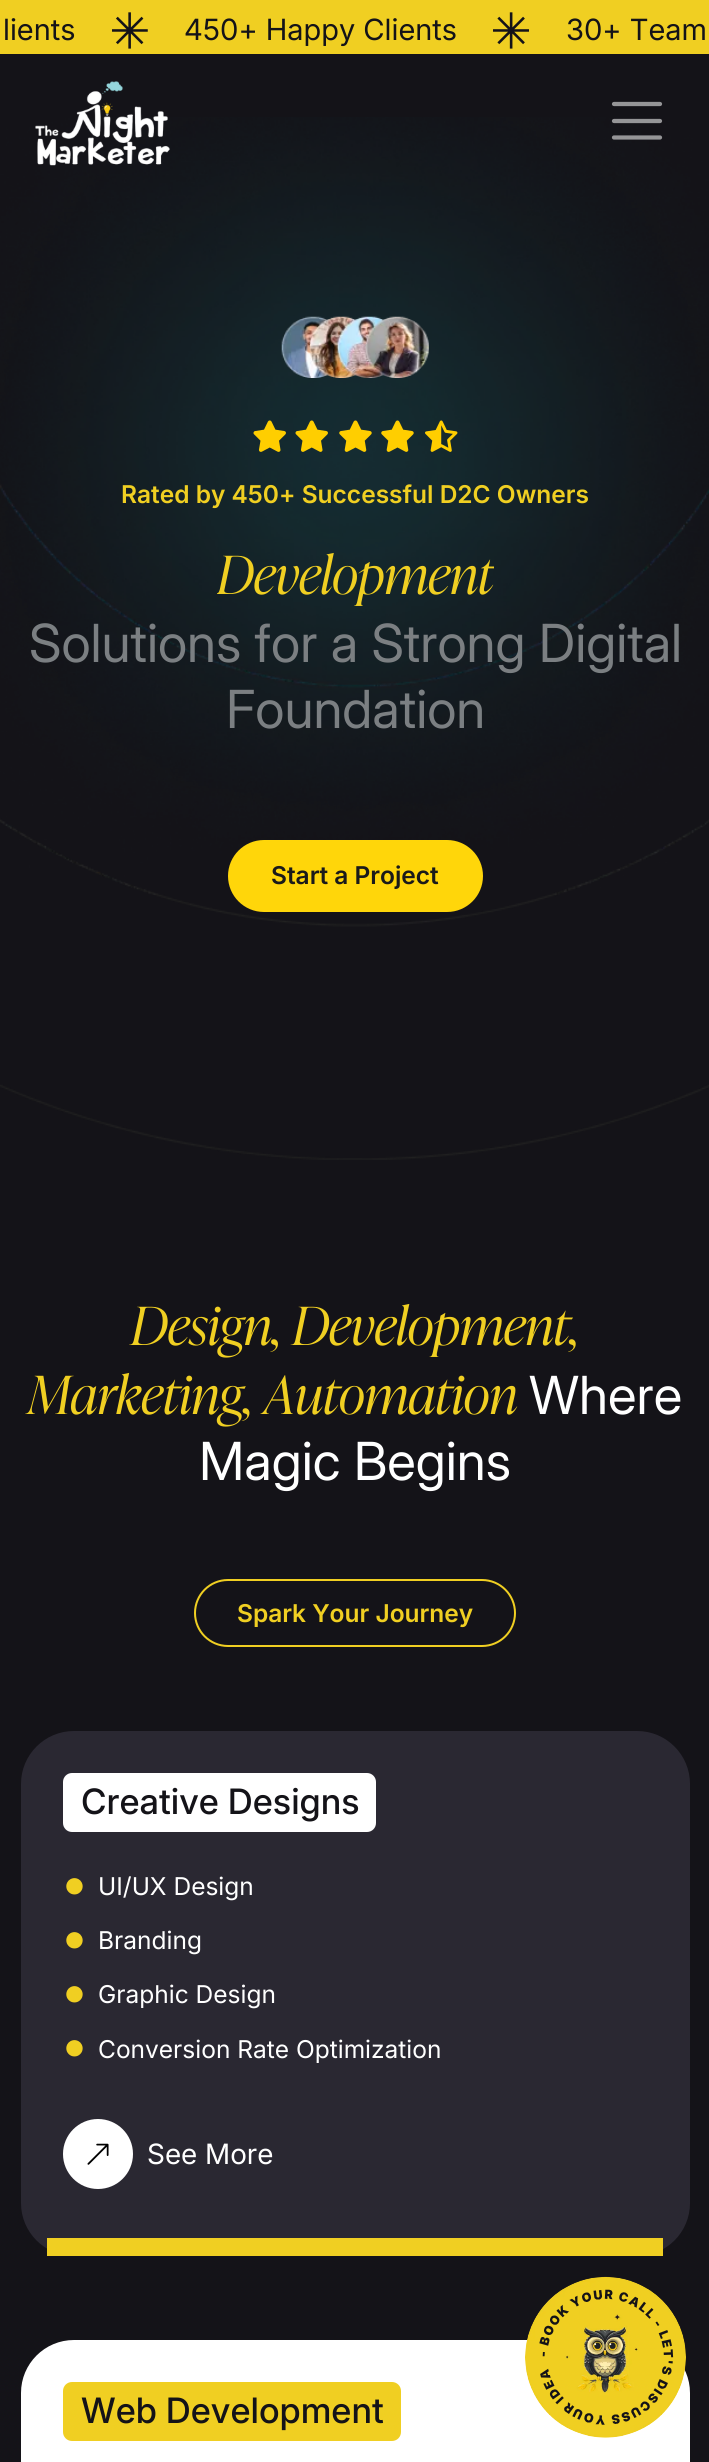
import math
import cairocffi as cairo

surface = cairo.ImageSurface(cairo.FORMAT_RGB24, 709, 2462)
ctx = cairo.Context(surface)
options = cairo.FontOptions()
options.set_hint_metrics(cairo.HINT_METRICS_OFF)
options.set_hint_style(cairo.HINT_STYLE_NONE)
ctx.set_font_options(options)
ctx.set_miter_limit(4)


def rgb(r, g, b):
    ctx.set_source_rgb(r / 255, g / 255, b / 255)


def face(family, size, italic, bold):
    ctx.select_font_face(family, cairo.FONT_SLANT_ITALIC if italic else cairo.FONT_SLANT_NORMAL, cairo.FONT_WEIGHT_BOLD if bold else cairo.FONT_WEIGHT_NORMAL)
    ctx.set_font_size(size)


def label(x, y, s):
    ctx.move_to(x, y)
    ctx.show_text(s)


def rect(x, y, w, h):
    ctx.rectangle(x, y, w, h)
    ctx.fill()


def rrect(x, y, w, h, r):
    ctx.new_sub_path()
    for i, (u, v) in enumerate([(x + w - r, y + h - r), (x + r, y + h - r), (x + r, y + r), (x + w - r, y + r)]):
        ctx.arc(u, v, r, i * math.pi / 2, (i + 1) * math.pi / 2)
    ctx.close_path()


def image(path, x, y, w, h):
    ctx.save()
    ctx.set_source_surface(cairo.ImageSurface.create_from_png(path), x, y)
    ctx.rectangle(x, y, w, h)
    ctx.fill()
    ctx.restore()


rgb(20, 19, 24)
ctx.paint()
rgb(240, 207, 34)
rect(0, 0, 709, 54)
face('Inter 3', 29.25, 0, 0)
rgb(20, 19, 24)
label(3, 40, 'lients')
image('image0.png', 112, 12, 36, 37)
label(184, 40, '450+ Happy Clients')
image('image1.png', 493, 12, 36, 37)
label(566, 40, '30+ Team')
image('image3.png', 0, 117, 709, 1043)
image('image2.png', 35, 81, 135, 85)
ctx.new_path()
ctx.move_to(614, 104)
ctx.line_to(660, 104)
ctx.move_to(614, 121)
ctx.line_to(660, 121)
ctx.move_to(614, 137.5)
ctx.line_to(660, 137.5)
rgb(149, 149, 151)
ctx.set_line_width(4.2)
ctx.set_line_cap(cairo.LINE_CAP_ROUND)
ctx.stroke()
image('image4.png', 281, 316, 148, 62)
image('image5.png', 253, 420, 33, 32)
image('image6.png', 295, 420, 33, 32)
image('image7.png', 339, 420, 33, 32)
image('image8.png', 381, 420, 33, 32)
image('image9.png', 425, 420, 33, 32)
face('Inter SemiBold', 24.5, 0, 0)
rgb(240, 207, 34)
label(121, 503, 'Rated by 450+ Successful D2C Owners')
ctx.save()
ctx.rectangle(217, 543, 277, 63)
ctx.clip()
face('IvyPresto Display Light', 52.5, 1, 0)
label(217, 594, 'Development')
ctx.restore()
face('Inter', 52.5, 0, 0)
rgb(123, 127, 130)
label(29, 662, 'Solutions for a Strong Digital')
label(226, 728, 'Foundation')
rgb(255, 214, 10)
rrect(228, 840, 255, 72, 36)
ctx.fill()
face('Inter SemiBold', 24.5, 0, 0)
rgb(26, 26, 26)
label(271, 884, 'Start a Project')
face('IvyPresto Display Light', 52.5, 1, 0)
rgb(240, 207, 34)
label(131, 1345, 'Design, Development,')
label(28, 1414, 'Marketing, Automation')
face('Inter', 52.5, 0, 0)
rgb(255, 255, 255)
label(529, 1414, 'Where')
label(199, 1480, 'Magic Begins')
rrect(195, 1580, 320, 66, 33)
rgb(240, 207, 34)
ctx.set_line_width(2)
ctx.set_line_cap(cairo.LINE_CAP_BUTT)
ctx.stroke()
face('Inter SemiBold', 24.5, 0, 0)
label(237, 1622, 'Spark Your Journey')
rgb(42, 40, 50)
rrect(21, 1731, 669, 525, 53)
ctx.fill()
rgb(240, 207, 34)
rect(47, 2238, 616, 18)
rgb(255, 255, 255)
rrect(63, 1773, 313, 59, 9)
ctx.fill()
face('Inter Medium', 35, 0, 0)
rgb(20, 19, 24)
label(81, 1814, 'Creative Designs')
face('Liberation Serif', 38, 0, 0)
rgb(240, 207, 34)
label(63, 1897, '●')
face('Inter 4', 24.5, 0, 0)
rgb(255, 255, 255)
label(98, 1895, 'UI/UX Design')
face('Liberation Serif', 38, 0, 0)
rgb(240, 207, 34)
label(63, 1951, '●')
face('Inter 4', 24.5, 0, 0)
rgb(255, 255, 255)
label(98, 1949, 'Branding')
face('Liberation Serif', 38, 0, 0)
rgb(240, 207, 34)
label(63, 2005, '●')
face('Inter 4', 24.5, 0, 0)
rgb(255, 255, 255)
label(98, 2003, 'Graphic Design')
face('Liberation Serif', 38, 0, 0)
rgb(240, 207, 34)
label(63, 2059, '●')
face('Inter 4', 24.5, 0, 0)
rgb(255, 255, 255)
label(98, 2058, 'Conversion Rate Optimization')
ctx.new_path()
ctx.arc(98, 2154, 35, 0, 2 * math.pi)
ctx.fill()
image('image10.png', 87, 2143, 22, 22)
face('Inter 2', 28, 0, 0)
label(147, 2164, 'See More')
rrect(21, 2340, 669, 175, 53)
ctx.fill()
rgb(240, 207, 34)
rrect(63, 2382, 338, 59, 9)
ctx.fill()
face('Inter Medium', 35, 0, 0)
rgb(20, 19, 24)
label(81, 2423, 'Web Development')
image('image11.png', 525, 2276, 161, 162)
image('image12.png', 539, 2289, 135, 136)
surface.write_to_png('render.png')
